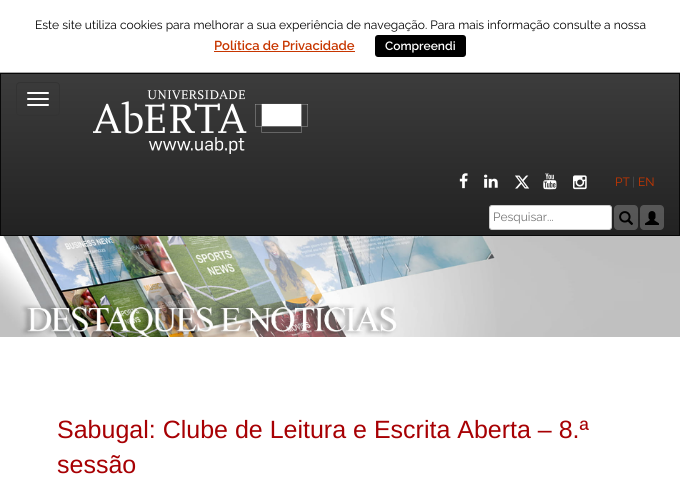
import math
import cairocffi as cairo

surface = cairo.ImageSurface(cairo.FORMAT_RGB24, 680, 490)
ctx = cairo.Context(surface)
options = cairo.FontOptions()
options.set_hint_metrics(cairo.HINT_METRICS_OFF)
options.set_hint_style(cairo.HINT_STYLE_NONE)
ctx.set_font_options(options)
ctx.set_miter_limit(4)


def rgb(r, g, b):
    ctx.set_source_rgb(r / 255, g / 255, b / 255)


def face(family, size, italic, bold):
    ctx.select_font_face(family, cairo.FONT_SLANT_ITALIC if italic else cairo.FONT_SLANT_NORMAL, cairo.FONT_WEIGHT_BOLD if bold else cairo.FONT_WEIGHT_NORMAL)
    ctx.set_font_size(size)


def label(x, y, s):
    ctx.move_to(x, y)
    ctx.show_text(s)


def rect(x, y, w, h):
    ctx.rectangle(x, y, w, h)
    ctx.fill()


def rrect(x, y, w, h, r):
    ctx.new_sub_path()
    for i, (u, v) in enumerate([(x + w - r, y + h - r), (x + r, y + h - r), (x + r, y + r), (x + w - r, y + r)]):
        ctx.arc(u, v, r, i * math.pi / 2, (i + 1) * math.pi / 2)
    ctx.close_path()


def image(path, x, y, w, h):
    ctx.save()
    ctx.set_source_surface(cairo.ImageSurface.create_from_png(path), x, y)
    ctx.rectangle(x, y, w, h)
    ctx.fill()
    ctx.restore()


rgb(255, 255, 255)
ctx.paint()
rgb(170, 170, 170)
rect(0, 72, 680, 1)
face('Raleway', 12, 0, 0)
rgb(0, 0, 0)
label(35, 29, 'Este site utiliza cookies para melhorar a sua experiência de navegação. Para mais informação consulte a nossa')
face('Raleway SemiBold', 13, 0, 0)
rgb(199, 54, 0)
label(214, 50, 'Política de Privacidade')
rect(214, 51, 141, 1)
rgb(0, 0, 0)
rrect(375, 35, 91, 22, 3)
ctx.fill()
face('Raleway SemiBold', 12, 0, 0)
rgb(255, 255, 255)
label(385, 50, 'Compreendi')
gradient = cairo.LinearGradient(340, 74, 340, 235)
gradient.add_color_stop_rgba(0, 0.235, 0.235, 0.235, 1)
gradient.add_color_stop_rgba(1, 0.133, 0.133, 0.133, 1)
ctx.set_source(gradient)
rect(1, 74, 678, 161)
ctx.rectangle(0.5, 73.5, 679, 162)
rgb(8, 8, 8)
ctx.set_line_width(1)
ctx.stroke()
rrect(16.5, 82.5, 43, 33, 3.5)
rgb(51, 51, 51)
ctx.stroke()
rgb(255, 255, 255)
rrect(27, 92, 22, 2, 1)
ctx.fill()
rrect(27, 98, 22, 2, 1)
ctx.fill()
rrect(27, 104, 22, 2, 1)
ctx.fill()
image('image0.png', 93, 90, 215, 64)
image('image1.png', 459, 173, 9, 16)
image('image2.png', 484, 174, 14, 14)
image('image3.png', 515, 175, 15, 14)
image('image4.png', 543, 173, 14, 17)
image('image5.png', 573, 175, 14, 15)
face('Raleway', 12, 0, 0)
rgb(199, 54, 0)
label(615, 186, 'PT')
rgb(77, 80, 81)
label(632, 186, '|')
rgb(199, 54, 0)
label(638, 186, 'EN')
rgb(255, 255, 255)
rrect(489.5, 205.5, 122, 24, 2.5)
ctx.fill_preserve()
rgb(204, 204, 204)
ctx.stroke()
rgb(117, 117, 117)
label(493, 221, 'Pesquisar...')
ctx.set_source_rgba(0.784, 0.784, 0.784, 0.3)
rrect(614, 205, 24, 25, 4)
ctx.fill()
image('image6.png', 619, 211, 14, 14)
rrect(640, 205, 24, 25, 4)
ctx.fill()
image('image7.png', 645, 211, 14, 14)
image('image8.png', 0, 236, 680, 101)
face('Liberation Sans', 25, 0, 0)
rgb(167, 0, 3)
label(57, 438, 'Sabugal: Clube de Leitura e Escrita Aberta – 8.ª')
label(57, 473, 'sessão')
surface.write_to_png('render.png')
